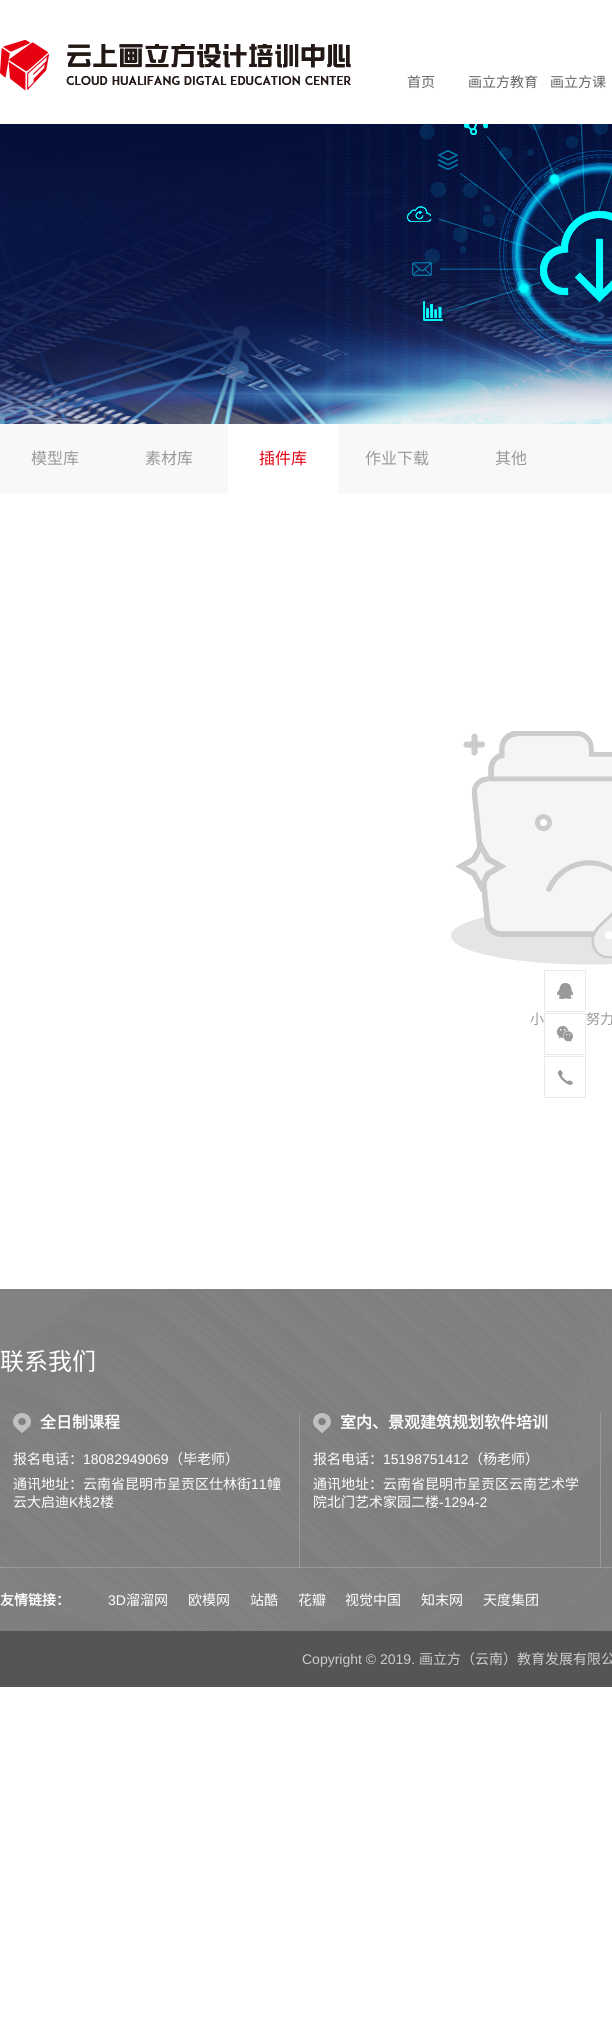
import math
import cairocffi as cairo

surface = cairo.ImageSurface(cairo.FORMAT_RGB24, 612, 2021)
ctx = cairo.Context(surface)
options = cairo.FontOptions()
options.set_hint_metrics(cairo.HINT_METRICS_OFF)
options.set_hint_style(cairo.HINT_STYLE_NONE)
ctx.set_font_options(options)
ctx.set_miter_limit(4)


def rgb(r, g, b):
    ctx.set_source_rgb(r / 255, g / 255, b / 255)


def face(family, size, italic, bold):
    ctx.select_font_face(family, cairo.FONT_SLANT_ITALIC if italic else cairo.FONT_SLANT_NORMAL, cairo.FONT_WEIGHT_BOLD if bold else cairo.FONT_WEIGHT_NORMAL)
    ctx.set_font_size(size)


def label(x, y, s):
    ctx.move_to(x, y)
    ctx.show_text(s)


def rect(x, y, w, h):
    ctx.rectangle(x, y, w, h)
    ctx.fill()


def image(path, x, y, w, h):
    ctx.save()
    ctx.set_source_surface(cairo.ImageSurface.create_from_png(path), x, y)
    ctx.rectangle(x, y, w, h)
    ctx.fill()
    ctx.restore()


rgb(255, 255, 255)
ctx.paint()
image('image0.png', 0, 40, 351, 50)
face('Noto Sans CJK SC', 14, 0, 0)
rgb(102, 102, 102)
label(407, 87, '首页')
label(468, 87, '画立方教育')
label(550, 87, '画立方课')
image('image1.png', 0, 124, 612, 300)
rgb(248, 248, 248)
rect(0, 424, 612, 70)
face('Noto Sans CJK SC', 16, 0, 0)
rgb(153, 153, 153)
label(31, 464, '模型库')
label(145, 464, '素材库')
rgb(255, 255, 255)
rect(228, 424, 110, 70)
rgb(230, 0, 18)
label(259, 464, '插件库')
rgb(153, 153, 153)
label(365, 464, '作业下载')
label(495, 464, '其他')
image('image2.png', 557, 983, 16, 16)
ctx.rectangle(544.5, 970.5, 41, 41)
rgb(234, 234, 234)
ctx.set_line_width(1)
ctx.stroke()
image('image3.png', 557, 1026, 16, 16)
ctx.rectangle(544.5, 1013.5, 41, 41)
ctx.stroke()
image('image4.png', 558, 1070, 15, 15)
ctx.rectangle(544.5, 1056.5, 41, 41)
ctx.stroke()
image('image5.png', 451, 731, 161, 234)
face('Noto Sans CJK SC', 14, 0, 0)
rgb(153, 153, 153)
label(530, 1024, '小')
label(586, 1024, '努力')
image('image6.png', 0, 1289, 612, 342)
face('Noto Sans CJK SC', 24, 0, 0)
rgb(255, 255, 255)
label(0, 1370, '联系我们')
rgb(153, 153, 153)
rect(299, 1413, 1, 154)
image('image7.png', 13, 1413, 18, 20)
face('Noto Sans CJK SC', 16, 0, 1)
rgb(255, 255, 255)
label(40, 1428, '全日制课程')
face('Noto Sans CJK SC', 14, 0, 0)
label(13, 1464, '报名电话：')
face('Liberation Sans', 14, 0, 0)
label(83, 1464, '18082949069')
face('Noto Sans CJK SC', 14, 0, 0)
label(169, 1464, '（毕老师）')
label(13, 1489, '通讯地址：云南省昆明市呈贡区仕林街')
face('Liberation Sans', 14, 0, 0)
label(251, 1489, '11')
face('Noto Sans CJK SC', 14, 0, 0)
label(267, 1489, '幢')
label(13, 1507, '云大启迪')
face('Liberation Sans', 14, 0, 0)
label(69, 1507, 'K')
face('Noto Sans CJK SC', 14, 0, 0)
label(78, 1507, '栈')
face('Liberation Sans', 14, 0, 0)
label(92, 1507, '2')
face('Noto Sans CJK SC', 14, 0, 0)
label(100, 1507, '楼')
image('image8.png', 313, 1413, 18, 20)
face('Noto Sans CJK SC', 16, 0, 1)
label(340, 1428, '室内、景观建筑规划软件培训')
face('Noto Sans CJK SC', 14, 0, 0)
label(313, 1464, '报名电话：')
face('Liberation Sans', 14, 0, 0)
label(383, 1464, '15198751412')
face('Noto Sans CJK SC', 14, 0, 0)
label(469, 1464, '（杨老师）')
label(313, 1489, '通讯地址：云南省昆明市呈贡区云南艺术学')
label(313, 1507, '院北门艺术家园二楼')
face('Liberation Sans', 14, 0, 0)
label(439, 1507, '-1294-2')
rgb(153, 153, 153)
rect(600, 1413, 1, 154)
rect(0, 1567, 612, 1)
face('Noto Sans CJK SC', 14, 0, 1)
rgb(255, 255, 255)
label(0, 1605, '友情链接：')
face('Liberation Sans', 14, 0, 0)
label(108, 1605, '3D')
face('Noto Sans CJK SC', 14, 0, 0)
label(126, 1605, '溜溜网')
label(188, 1605, '欧模网')
label(250, 1605, '站酷')
label(298, 1605, '花瓣')
label(345, 1605, '视觉中国')
label(421, 1605, '知末网')
label(483, 1605, '天度集团')
rgb(85, 85, 85)
rect(0, 1631, 612, 56)
face('Liberation Sans', 14, 0, 0)
rgb(204, 204, 204)
label(302, 1664, 'Copyright © 2019.')
face('Noto Sans CJK SC', 14, 0, 0)
label(419, 1664, '画立方（云南）教育发展有限公')
surface.write_to_png('render.png')
